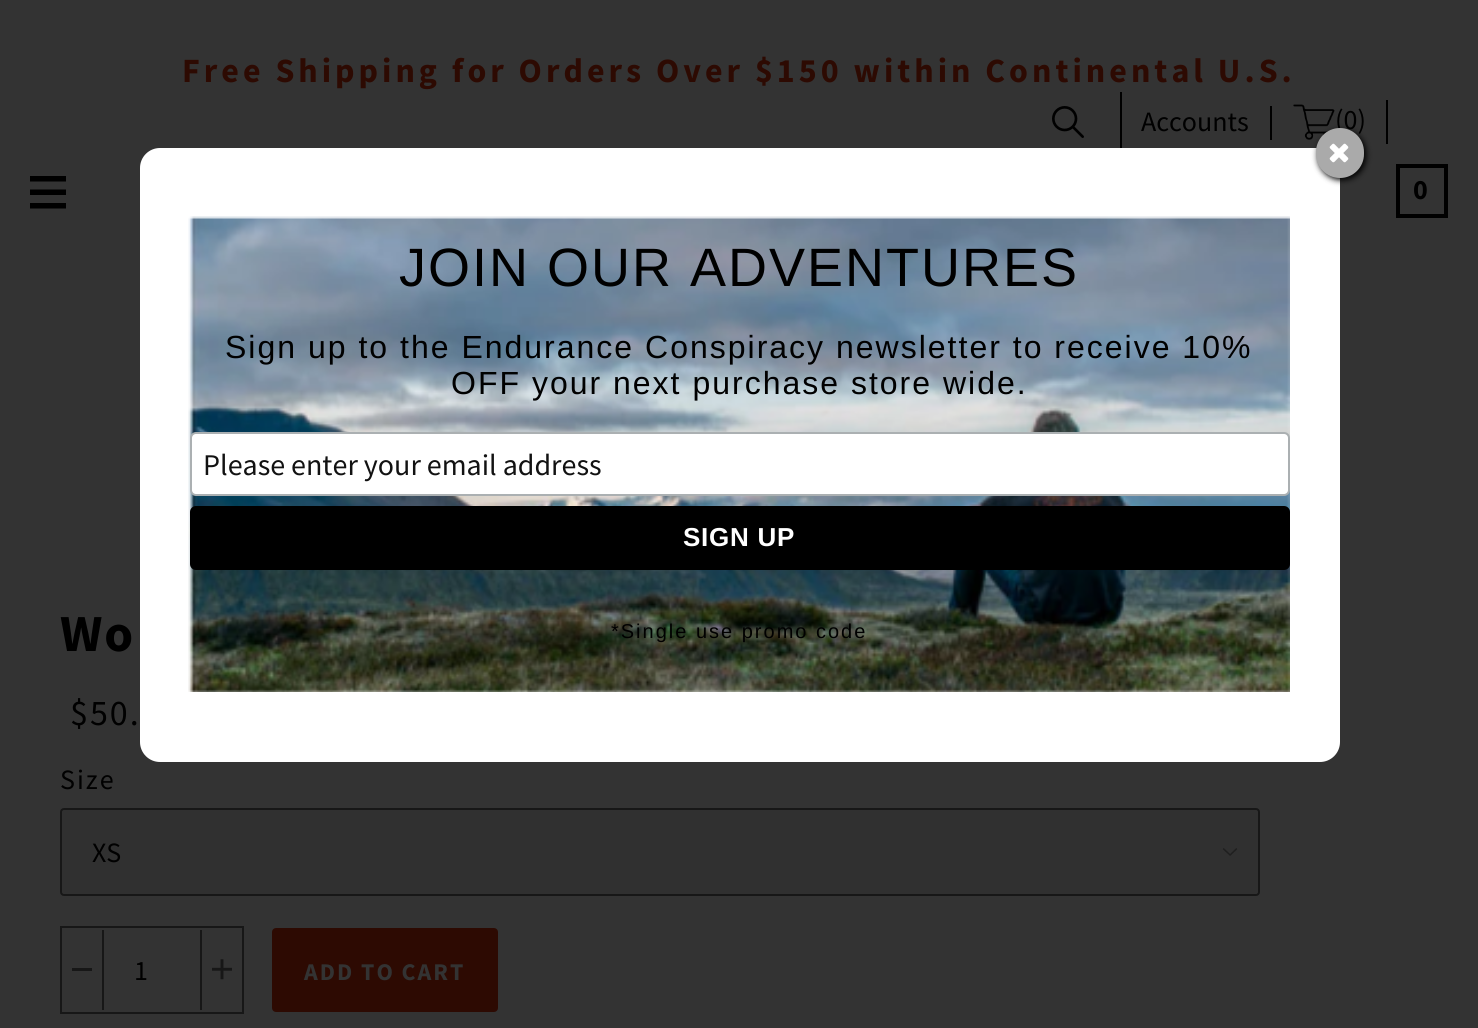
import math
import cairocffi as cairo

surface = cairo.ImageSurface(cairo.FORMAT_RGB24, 1478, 1028)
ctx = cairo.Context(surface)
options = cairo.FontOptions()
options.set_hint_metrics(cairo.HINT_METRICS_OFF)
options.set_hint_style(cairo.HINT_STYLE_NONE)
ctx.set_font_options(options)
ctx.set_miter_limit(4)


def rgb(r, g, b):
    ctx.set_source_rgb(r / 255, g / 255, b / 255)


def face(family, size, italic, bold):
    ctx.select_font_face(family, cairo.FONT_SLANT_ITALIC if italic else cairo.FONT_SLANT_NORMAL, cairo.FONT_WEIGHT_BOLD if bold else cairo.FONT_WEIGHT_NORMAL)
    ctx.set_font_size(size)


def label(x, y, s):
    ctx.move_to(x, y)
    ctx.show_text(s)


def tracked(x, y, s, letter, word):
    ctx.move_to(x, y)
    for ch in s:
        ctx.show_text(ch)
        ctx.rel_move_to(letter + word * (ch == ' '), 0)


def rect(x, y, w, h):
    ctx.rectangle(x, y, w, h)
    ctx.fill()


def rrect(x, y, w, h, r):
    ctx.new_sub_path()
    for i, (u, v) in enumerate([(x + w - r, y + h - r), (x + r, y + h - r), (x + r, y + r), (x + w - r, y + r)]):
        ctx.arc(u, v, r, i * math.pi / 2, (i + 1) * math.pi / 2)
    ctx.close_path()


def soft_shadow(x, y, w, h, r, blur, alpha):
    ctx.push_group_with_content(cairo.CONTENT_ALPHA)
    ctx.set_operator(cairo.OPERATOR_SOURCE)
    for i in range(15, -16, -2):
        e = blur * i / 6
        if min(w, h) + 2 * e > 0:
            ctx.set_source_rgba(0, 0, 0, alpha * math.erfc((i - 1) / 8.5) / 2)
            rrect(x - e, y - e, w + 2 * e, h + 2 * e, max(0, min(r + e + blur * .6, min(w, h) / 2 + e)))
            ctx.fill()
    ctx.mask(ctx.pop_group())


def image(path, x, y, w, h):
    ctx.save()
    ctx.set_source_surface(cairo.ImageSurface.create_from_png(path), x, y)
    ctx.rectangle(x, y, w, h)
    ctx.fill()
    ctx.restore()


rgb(51, 51, 51)
ctx.paint()
face('Source Sans Pro', 34, 0, 1)
rgb(45, 10, 2)
tracked(182, 82, 'Free Shipping for Orders Over $150 within Continental U.S.', 4, 0)
rgb(0, 0, 0)
rect(1120, 92, 2, 60)
image('image0.png', 1052, 106, 32, 32)
rect(1270, 106, 2, 34)
face('Source Sans Pro', 28, 0, 0)
label(1141, 131, 'Accounts')
rect(1386, 100, 2, 44)
image('image1.png', 1293, 104, 42, 36)
label(1335, 129, '(0)')
ctx.new_path()
ctx.move_to(30, 203)
ctx.line_to(66, 203)
ctx.line_to(66, 208.5)
ctx.line_to(30, 208.5)
ctx.close_path()
ctx.move_to(30, 176)
ctx.line_to(66, 176)
ctx.line_to(66, 181.5)
ctx.line_to(30, 181.5)
ctx.close_path()
ctx.move_to(30, 189.5)
ctx.line_to(66, 189.5)
ctx.line_to(66, 195)
ctx.line_to(30, 195)
ctx.close_path()
ctx.fill()
ctx.rectangle(1398, 166, 48, 50)
ctx.set_line_width(4)
ctx.stroke()
face('Source Sans Pro', 28, 0, 1)
tracked(1413, 199, '0', 2, 0)
face('Source Sans Pro', 52, 0, 1)
tracked(60, 651, 'Wo', 2, 0)
face('Source Sans Pro', 36, 0, 0)
tracked(70, 725, '$50.', 2, 0)
face('Source Sans Pro', 28, 0, 0)
tracked(60, 789, 'Size', 2, 0)
rgb(48, 48, 48)
rrect(60, 808, 1200, 88, 4)
ctx.fill()
image('image2.png', 1222, 848, 16, 8)
rrect(61, 809, 1198, 86, 3)
rgb(23, 23, 23)
ctx.set_line_width(2)
ctx.stroke()
rgb(0, 0, 0)
label(92, 862, 'XS')
ctx.rectangle(61, 927, 182, 86)
rgb(23, 23, 23)
ctx.stroke()
rect(72, 968, 20, 3)
rect(200, 930, 2, 80)
rect(102, 930, 2, 80)
rgb(0, 0, 0)
label(134, 980, '1')
image('image3.png', 212, 959, 20, 21)
rgb(45, 10, 2)
rrect(273, 929, 224, 82, 3)
ctx.fill_preserve()
ctx.stroke()
face('Source Sans Pro', 24, 0, 1)
rgb(51, 51, 51)
tracked(304, 980, 'ADD TO CART', 2, 0)
rgb(255, 255, 255)
rrect(140, 148, 1200, 614, 20)
ctx.fill()
rgb(0, 0, 0)
soft_shadow(1318, 130, 48, 50, 24, 3, 1)
rgb(170, 170, 170)
rrect(1316, 128, 48, 50, 24)
ctx.fill()
image('image4.png', 1329, 143, 20, 20)
image('image5.png', 188, 216, 1102, 476)
face('Liberation Sans', 54, 0, 0)
rgb(0, 0, 0)
tracked(399, 286, 'JOIN OUR ADVENTURES', 2, 0)
face('Liberation Sans', 32, 0, 0)
tracked(225, 358, 'Sign up to the Endurance Conspiracy newsletter to receive 10%', 2, 0)
tracked(451, 394, 'OFF your next purchase store wide.', 2, 0)
rgb(255, 255, 255)
rrect(191, 433, 1098, 62, 5)
ctx.fill_preserve()
rgb(171, 176, 178)
ctx.stroke()
face('Source Sans Pro', 30, 0, 0)
rgb(18, 18, 18)
label(203, 475, 'Please enter your email address')
rgb(0, 0, 0)
rrect(190, 506, 1100, 64, 6)
ctx.fill()
face('Liberation Sans', 26, 0, 1)
rgb(255, 255, 255)
tracked(683, 546, 'SIGN UP', 0.75, 0)
face('Liberation Sans', 20, 0, 0)
rgb(0, 0, 0)
tracked(611, 638, '*Single use promo code', 2, 0)
surface.write_to_png('render.png')
